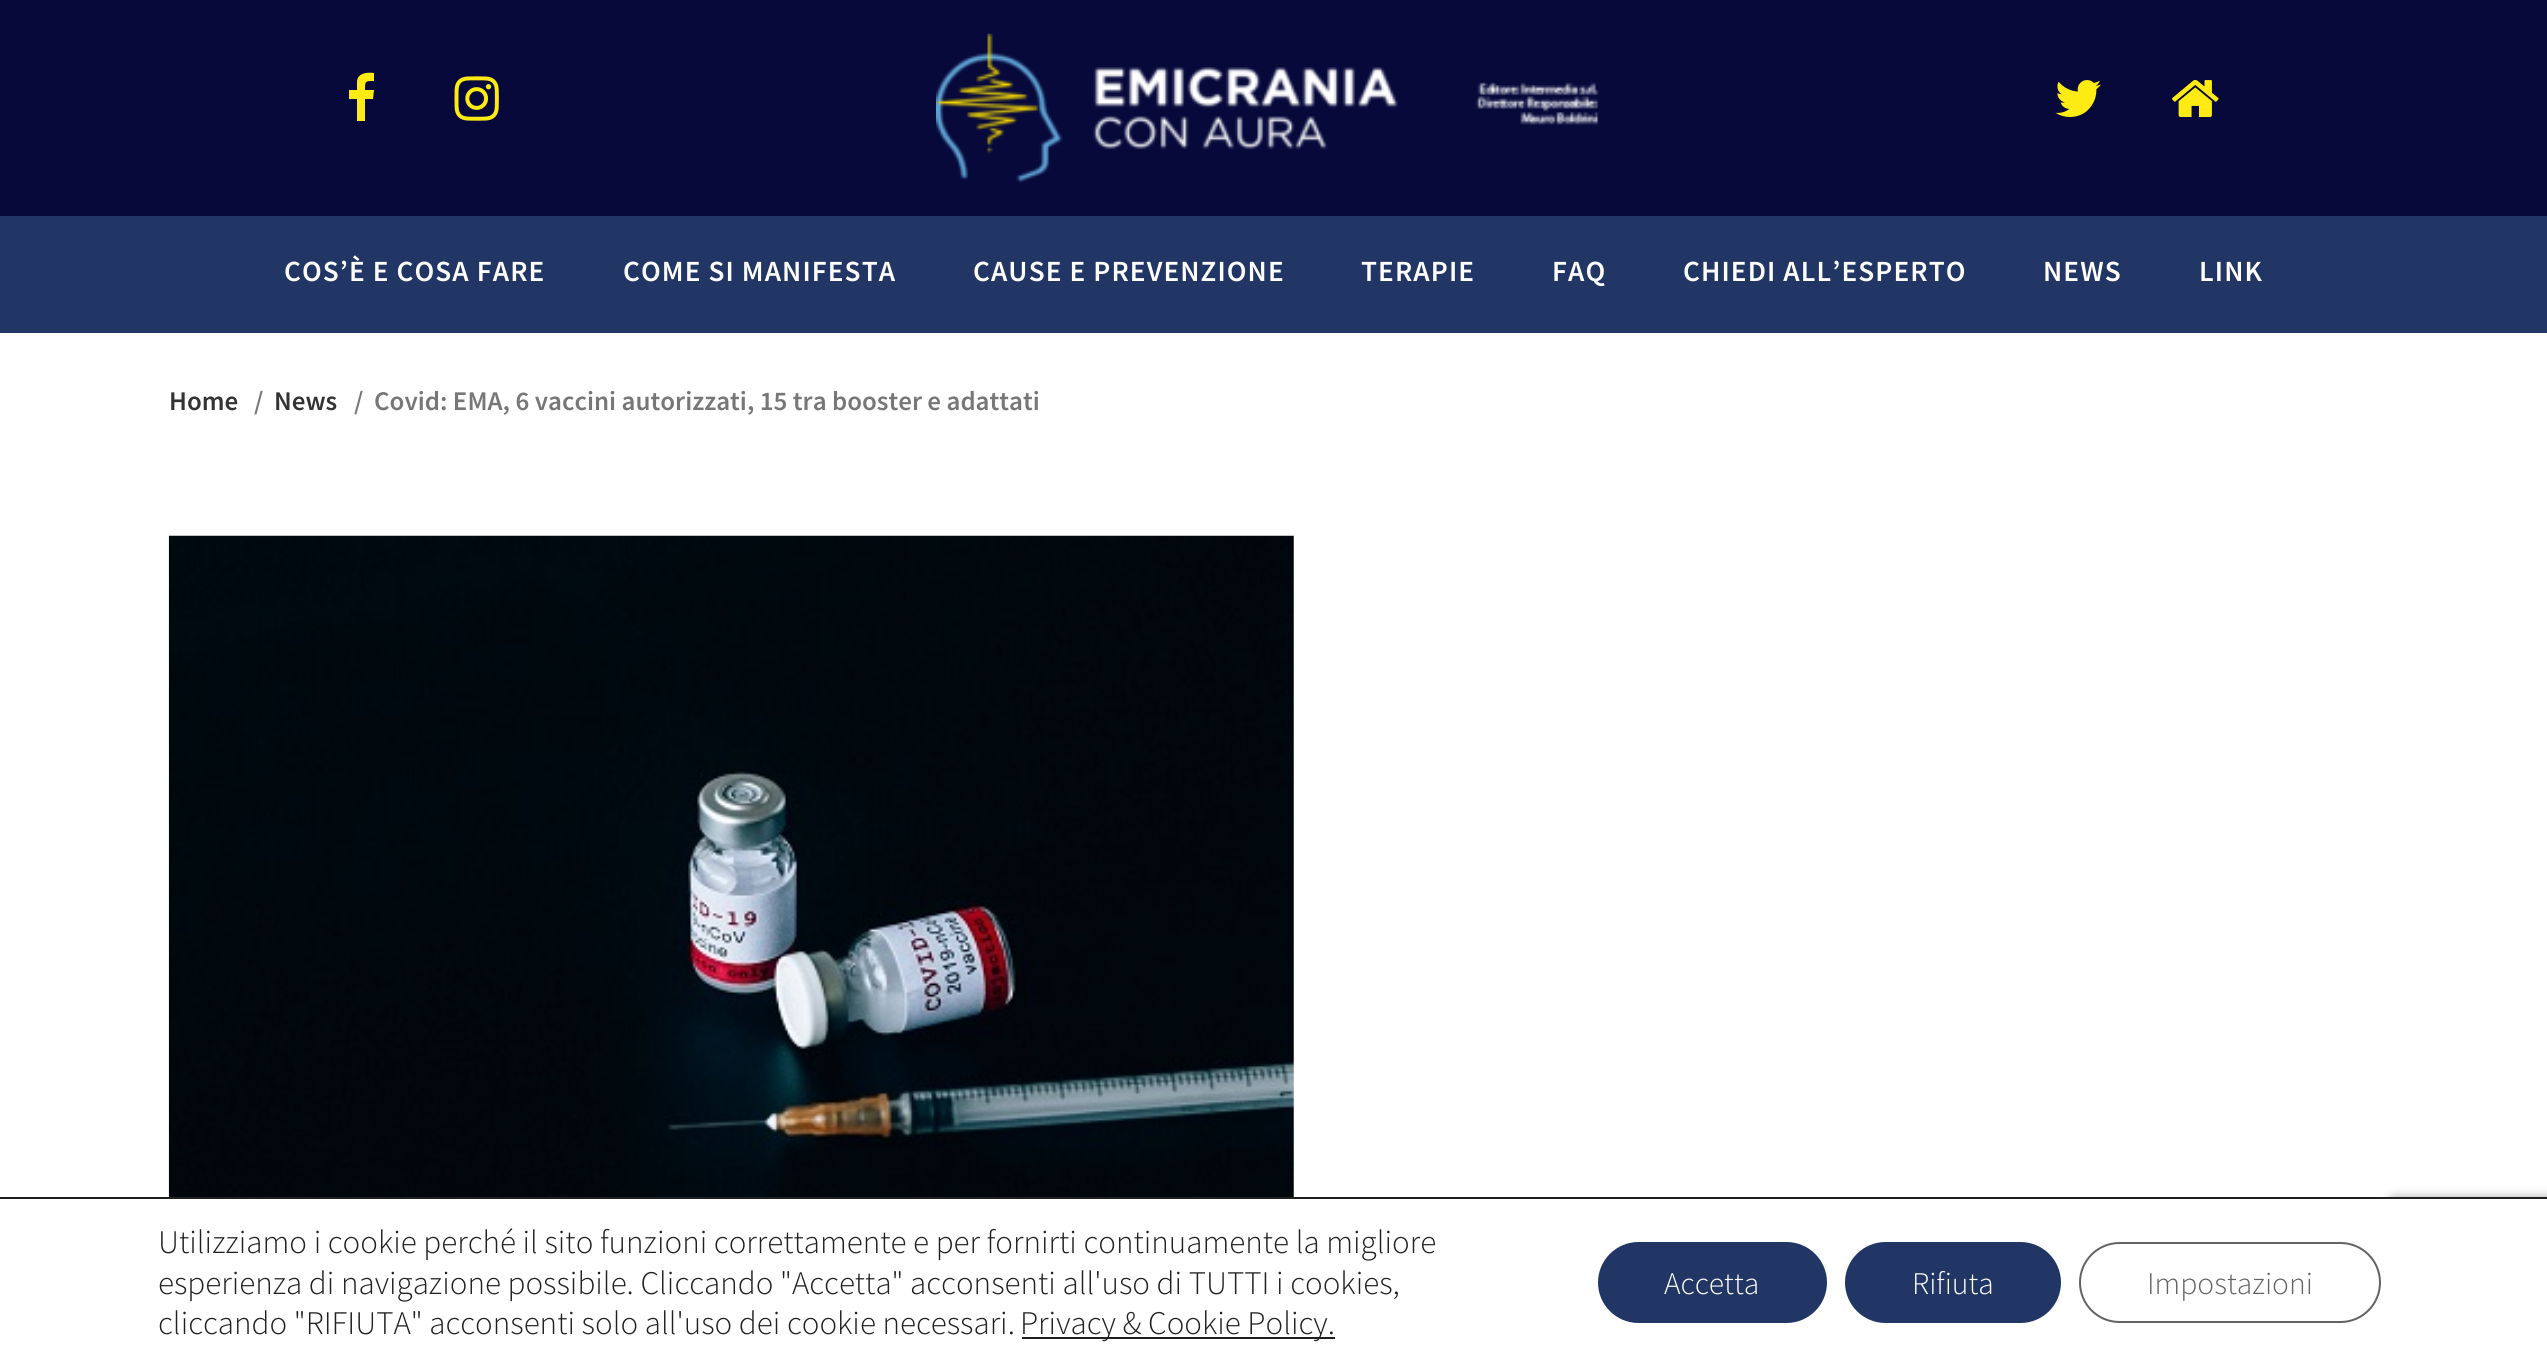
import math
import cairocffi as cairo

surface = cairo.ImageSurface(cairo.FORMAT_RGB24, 2547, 1365)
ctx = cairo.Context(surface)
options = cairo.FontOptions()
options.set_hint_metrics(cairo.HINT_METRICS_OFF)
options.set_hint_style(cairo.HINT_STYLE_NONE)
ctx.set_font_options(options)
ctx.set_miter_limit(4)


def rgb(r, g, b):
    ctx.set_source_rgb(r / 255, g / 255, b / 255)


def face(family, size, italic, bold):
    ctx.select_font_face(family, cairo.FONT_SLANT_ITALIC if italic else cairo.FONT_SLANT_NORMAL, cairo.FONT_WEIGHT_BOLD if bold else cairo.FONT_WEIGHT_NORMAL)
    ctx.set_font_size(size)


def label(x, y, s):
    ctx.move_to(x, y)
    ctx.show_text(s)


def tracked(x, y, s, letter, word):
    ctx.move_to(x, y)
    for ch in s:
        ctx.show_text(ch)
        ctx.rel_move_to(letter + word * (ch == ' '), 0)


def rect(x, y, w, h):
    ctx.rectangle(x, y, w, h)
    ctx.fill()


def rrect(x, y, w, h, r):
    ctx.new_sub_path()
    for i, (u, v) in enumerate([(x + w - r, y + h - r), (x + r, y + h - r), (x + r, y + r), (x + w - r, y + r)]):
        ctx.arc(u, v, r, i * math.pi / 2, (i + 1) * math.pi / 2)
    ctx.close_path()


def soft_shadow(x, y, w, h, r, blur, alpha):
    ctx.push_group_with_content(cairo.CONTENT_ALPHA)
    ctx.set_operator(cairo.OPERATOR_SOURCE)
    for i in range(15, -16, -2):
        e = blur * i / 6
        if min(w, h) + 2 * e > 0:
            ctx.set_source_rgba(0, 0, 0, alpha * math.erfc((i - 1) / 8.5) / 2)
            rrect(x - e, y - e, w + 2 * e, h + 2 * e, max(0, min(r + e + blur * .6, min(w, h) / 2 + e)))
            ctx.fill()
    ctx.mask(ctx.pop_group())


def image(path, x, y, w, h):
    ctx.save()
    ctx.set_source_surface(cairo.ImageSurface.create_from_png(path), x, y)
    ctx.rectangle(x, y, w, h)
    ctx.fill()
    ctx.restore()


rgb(7, 9, 59)
ctx.paint()
rgb(254, 235, 19)
ctx.new_path()
ctx.move_to(374, 73)
ctx.line_to(374, 81)
ctx.curve_to(365, 81, 365, 81, 365, 90)
ctx.line_to(374, 90)
ctx.line_to(373, 99)
ctx.line_to(365, 99)
ctx.line_to(365, 121)
ctx.line_to(357, 121)
ctx.line_to(357, 99)
ctx.line_to(349, 99)
ctx.line_to(349, 90)
ctx.line_to(357, 90)
ctx.line_to(357, 81)
ctx.curve_to(358, 73, 367, 72, 374, 73)
ctx.close_path()
ctx.fill()
image('image0.png', 454, 76, 45, 45)
image('image1.png', 936, 33, 663, 150)
image('image2.png', 2055, 80, 46, 37)
image('image3.png', 2172, 80, 47, 37)
rgb(33, 54, 101)
rect(0, 216, 2547, 117)
face('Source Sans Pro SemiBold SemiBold', 29.25, 0, 0)
rgb(255, 255, 255)
tracked(284, 281, 'COS’È E COSA FARE', 1.1, 0)
tracked(623, 281, 'COME SI MANIFESTA', 1.1, 0)
tracked(973, 281, 'CAUSE E PREVENZIONE', 1.1, 0)
tracked(1361, 281, 'TERAPIE', 1.1, 0)
tracked(1552, 281, 'FAQ', 1.1, 0)
tracked(1683, 281, 'CHIEDI ALL’ESPERTO', 1.1, 0)
tracked(2043, 281, 'NEWS', 1.1, 0)
tracked(2199, 281, 'LINK', 1.1, 0)
rect(0, 333, 2547, 864)
face('Source Sans Pro SemiBold SemiBold', 27, 0, 0)
rgb(51, 51, 51)
label(169, 410, 'Home')
rgb(119, 119, 119)
label(254, 410, '/')
rgb(51, 51, 51)
label(274, 410, 'News')
rgb(119, 119, 119)
label(354, 410, '/')
label(374, 410, 'Covid: EMA, 6 vaccini autorizzati, 15 tra booster e adattati')
image('image4.png', 168, 535, 1126, 662)
rgb(128, 128, 128)
soft_shadow(2390, 1199, 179, 135, 5, 5.5, 1)
rgb(255, 255, 255)
rect(0, 1199, 2547, 166)
rgb(32, 32, 32)
rect(0, 1197, 2547, 2)
face('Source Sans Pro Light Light', 33, 0, 0)
label(158, 1253, 'Utilizziamo i cookie perché il sito funzioni correttamente e per fornirti continuamente la migliore')
label(158, 1294, 'esperienza di navigazione possibile. Cliccando "Accetta" acconsenti all\'uso di TUTTI i cookies,')
label(158, 1334, 'cliccando "RIFIUTA" acconsenti solo all\'uso dei cookie necessari.')
rect(1022, 1337, 313, 2)
label(1020, 1334, 'Privacy & Cookie Policy.')
rgb(33, 54, 101)
rrect(1598, 1242, 229, 81, 40.5)
ctx.fill()
face('Source Sans Pro Light Light', 31.5, 0, 0)
rgb(255, 255, 255)
label(1664, 1294, 'Accetta')
rgb(33, 54, 101)
rrect(1845, 1242, 216, 81, 40.5)
ctx.fill()
rgb(255, 255, 255)
label(1912, 1294, 'Rifiuta')
rrect(2080, 1243, 300, 79, 39.5)
rgb(99, 99, 99)
ctx.stroke()
label(2147, 1294, 'Impostazioni')
surface.write_to_png('render.png')
